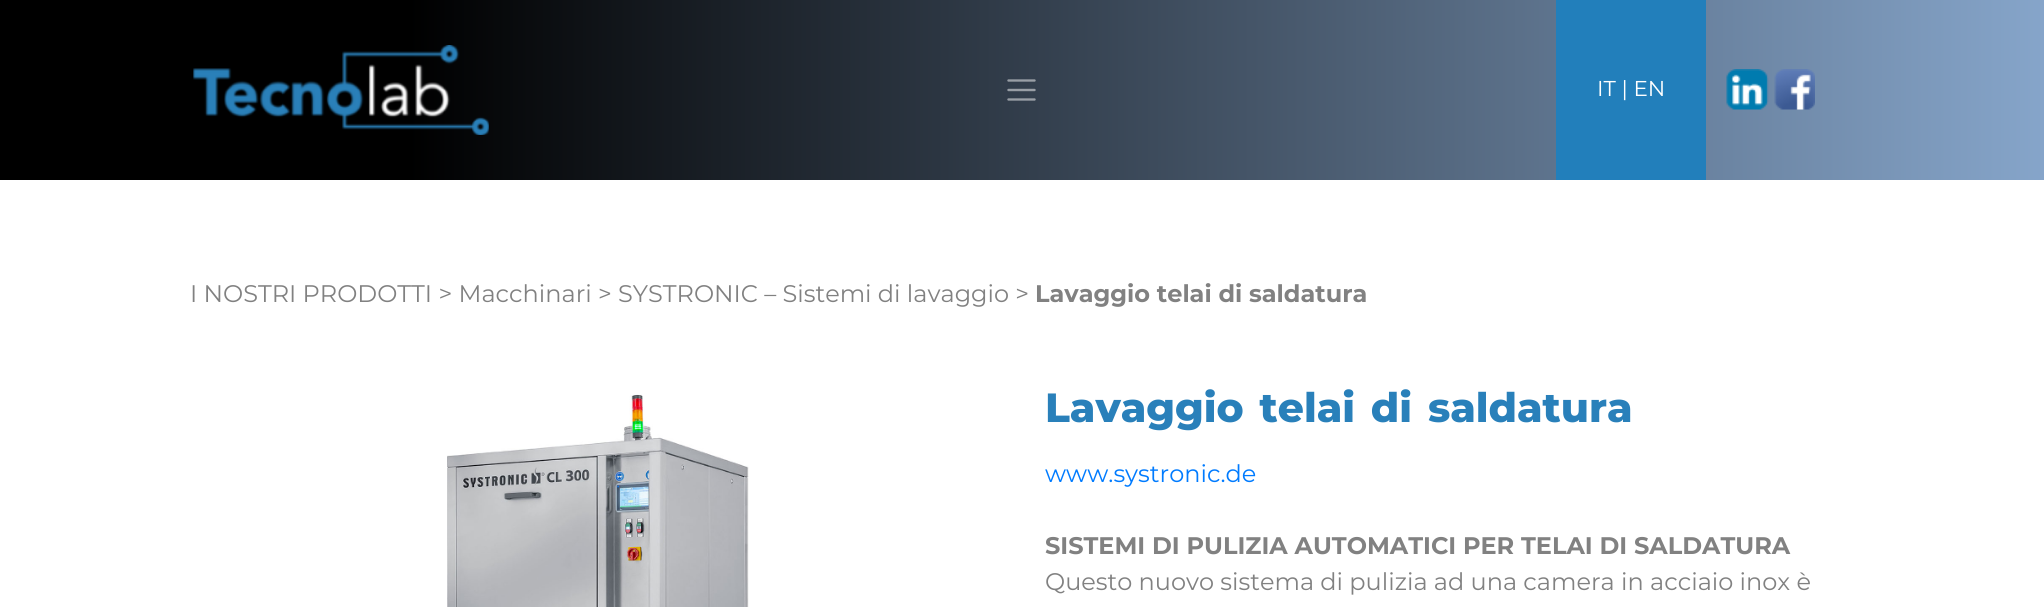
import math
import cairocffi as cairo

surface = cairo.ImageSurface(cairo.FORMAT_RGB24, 2044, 607)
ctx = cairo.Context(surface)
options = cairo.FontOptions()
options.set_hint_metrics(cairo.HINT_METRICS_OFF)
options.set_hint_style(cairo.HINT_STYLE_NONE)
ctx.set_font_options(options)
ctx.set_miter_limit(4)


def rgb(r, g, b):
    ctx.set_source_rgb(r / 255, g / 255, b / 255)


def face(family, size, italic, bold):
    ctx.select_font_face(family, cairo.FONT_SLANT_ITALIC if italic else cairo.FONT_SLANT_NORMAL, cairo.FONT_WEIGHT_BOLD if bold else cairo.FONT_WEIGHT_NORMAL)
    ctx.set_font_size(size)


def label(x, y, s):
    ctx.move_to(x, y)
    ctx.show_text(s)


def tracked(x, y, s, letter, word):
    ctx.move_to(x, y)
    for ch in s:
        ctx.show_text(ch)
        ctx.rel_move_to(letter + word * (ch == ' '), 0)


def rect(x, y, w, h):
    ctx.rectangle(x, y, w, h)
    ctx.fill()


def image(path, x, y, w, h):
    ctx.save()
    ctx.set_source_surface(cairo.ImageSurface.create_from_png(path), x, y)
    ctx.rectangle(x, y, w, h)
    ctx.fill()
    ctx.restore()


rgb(255, 255, 255)
ctx.paint()
gradient = cairo.LinearGradient(0, 90, 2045, 90)
gradient.add_color_stop_rgba(0.2, 0, 0, 0, 1)
gradient.add_color_stop_rgba(1, 0.525, 0.647, 0.792, 1)
ctx.set_source(gradient)
rect(0, 0, 2044, 180)
image('image0.png', 193, 45, 296, 90)
ctx.new_path()
ctx.move_to(1008.5, 80.5)
ctx.line_to(1034.5, 80.5)
ctx.move_to(1008.5, 90)
ctx.line_to(1034.5, 90)
ctx.move_to(1008.5, 99.5)
ctx.line_to(1034.5, 99.5)
ctx.set_source_rgba(1, 1, 1, 0.5)
ctx.set_line_width(2.4)
ctx.set_line_cap(cairo.LINE_CAP_ROUND)
ctx.stroke()
rgb(34, 127, 187)
rect(1556, 0, 150, 180)
face('Montserrat', 21.5, 0, 0)
rgb(255, 255, 255)
label(1597, 96, 'IT | EN')
image('image1.png', 1726, 69, 43, 41)
image('image2.png', 1774, 69, 41, 41)
face('Montserrat', 24, 0, 0)
rgb(129, 129, 129)
label(190, 302, 'I NOSTRI PRODOTTI > Macchinari > SYSTRONIC – Sistemi di lavaggio >')
face('Montserrat', 24, 0, 1)
label(1035, 302, 'Lavaggio telai di saldatura')
image('image3.png', 447, 394, 302, 213)
face('Montserrat ExtraBold', 40.75, 0, 0)
rgb(41, 128, 186)
tracked(1045, 422, 'Lavaggio telai di saldatura', 0, 4)
face('Montserrat', 24, 0, 0)
rgb(0, 123, 255)
label(1045, 482, 'www.systronic.de')
face('Montserrat', 24, 0, 1)
rgb(129, 129, 129)
label(1045, 554, 'SISTEMI DI PULIZIA AUTOMATICI PER TELAI DI SALDATURA')
face('Montserrat', 24, 0, 0)
label(1045, 590, 'Questo nuovo sistema di pulizia ad una camera in acciaio inox è')
surface.write_to_png('render.png')
